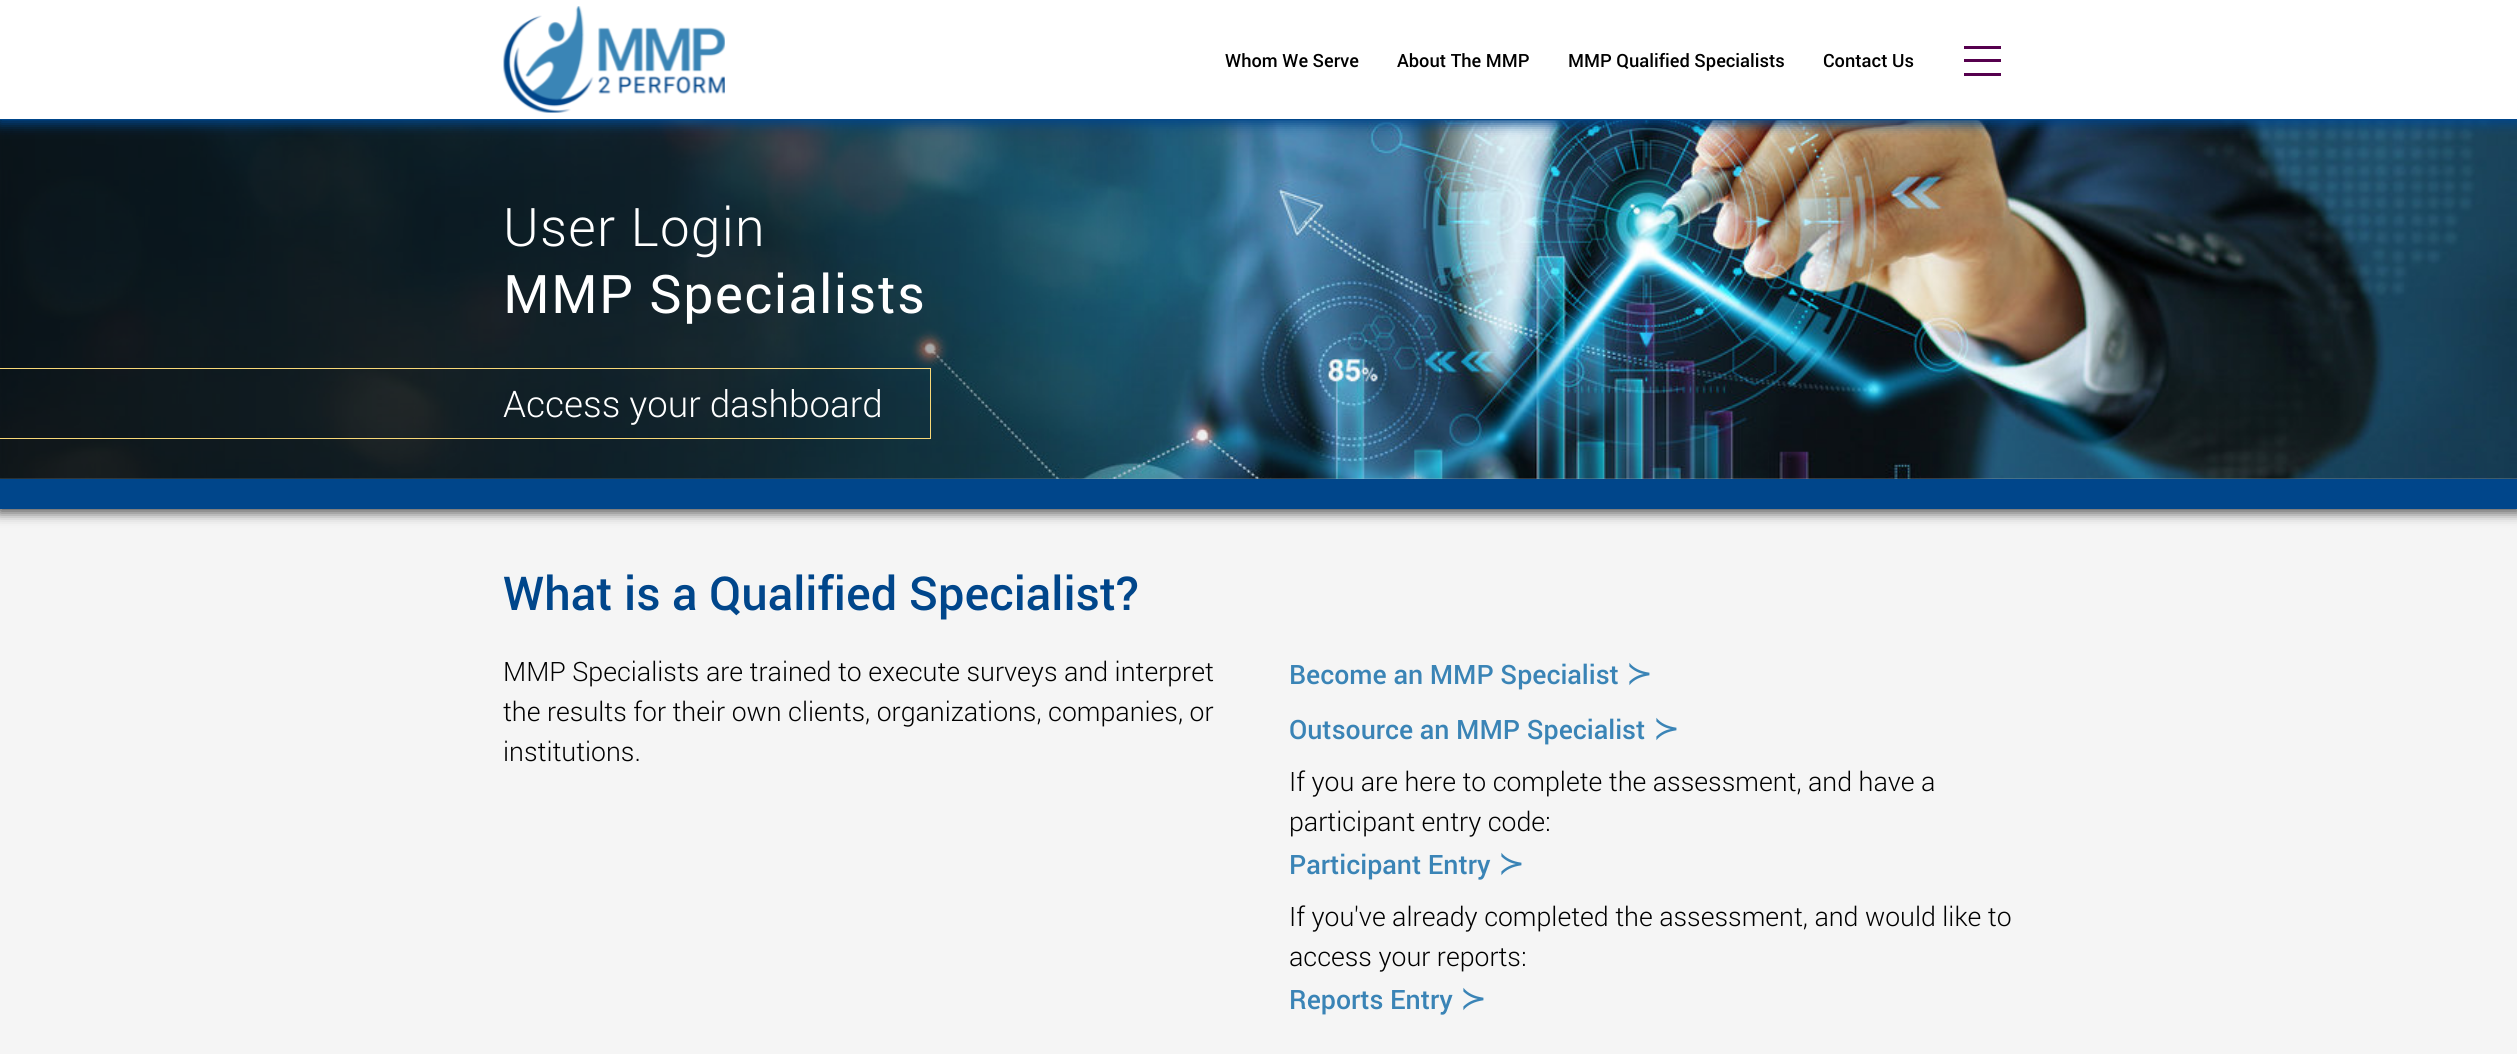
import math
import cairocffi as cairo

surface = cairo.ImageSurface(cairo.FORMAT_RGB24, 2517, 1054)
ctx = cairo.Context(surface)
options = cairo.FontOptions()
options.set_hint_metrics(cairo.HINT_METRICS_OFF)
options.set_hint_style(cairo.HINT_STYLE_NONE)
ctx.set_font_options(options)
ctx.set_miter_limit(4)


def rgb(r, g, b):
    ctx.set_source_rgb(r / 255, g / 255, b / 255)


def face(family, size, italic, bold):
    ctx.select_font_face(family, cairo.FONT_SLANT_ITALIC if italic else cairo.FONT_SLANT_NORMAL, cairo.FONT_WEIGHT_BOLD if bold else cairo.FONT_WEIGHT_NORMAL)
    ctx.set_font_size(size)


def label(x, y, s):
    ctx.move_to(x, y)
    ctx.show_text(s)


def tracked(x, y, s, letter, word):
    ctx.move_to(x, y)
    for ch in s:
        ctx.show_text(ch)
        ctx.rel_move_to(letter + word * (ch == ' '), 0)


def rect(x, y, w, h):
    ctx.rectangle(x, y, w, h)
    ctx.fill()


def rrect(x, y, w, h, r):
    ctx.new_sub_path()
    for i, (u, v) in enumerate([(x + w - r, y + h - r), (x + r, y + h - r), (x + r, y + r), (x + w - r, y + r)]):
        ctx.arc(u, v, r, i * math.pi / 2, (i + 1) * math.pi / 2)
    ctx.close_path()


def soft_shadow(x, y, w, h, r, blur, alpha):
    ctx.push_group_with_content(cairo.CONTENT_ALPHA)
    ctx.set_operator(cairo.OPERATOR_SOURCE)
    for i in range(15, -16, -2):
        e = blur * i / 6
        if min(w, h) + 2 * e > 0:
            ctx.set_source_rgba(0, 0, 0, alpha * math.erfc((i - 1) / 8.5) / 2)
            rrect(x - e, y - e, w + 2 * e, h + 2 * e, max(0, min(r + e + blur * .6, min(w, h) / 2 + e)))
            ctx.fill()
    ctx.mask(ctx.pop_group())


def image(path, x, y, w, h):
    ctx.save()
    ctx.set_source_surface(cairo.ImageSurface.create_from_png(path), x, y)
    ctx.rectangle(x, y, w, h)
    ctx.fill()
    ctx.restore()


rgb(255, 255, 255)
ctx.paint()
rgb(0, 70, 139)
rect(0, 479, 2517, 30)
rgb(245, 245, 245)
rect(0, 509, 2517, 545)
ctx.save()
ctx.set_fill_rule(cairo.FILL_RULE_EVEN_ODD)
ctx.new_path()
ctx.move_to(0, 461)
ctx.line_to(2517, 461)
ctx.line_to(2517, 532)
ctx.line_to(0, 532)
ctx.close_path()
ctx.move_to(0, 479)
ctx.line_to(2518, 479)
ctx.line_to(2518, 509)
ctx.line_to(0, 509)
ctx.close_path()
ctx.clip()
rgb(85, 85, 85)
soft_shadow(-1, 480, 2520, 33, 0, 6, 1)
ctx.restore()
image('image1.png', 0, 120, 2517, 359)
image('image2.png', 0, 120, 1237, 359)
rgb(0, 70, 139)
soft_shadow(-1, 1, 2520, 123, 0, 6, 1)
rgb(255, 255, 255)
rect(0, 0, 2517, 119)
rgb(0, 70, 139)
rect(0, 119, 2517, 1)
image('image0.png', 503, 6, 222, 107)
face('Roboto Medium', 18.25, 0, 0)
rgb(0, 0, 0)
label(1225, 67, 'Whom We Serve')
label(1397, 67, 'About The MMP')
label(1568, 67, 'MMP Qualified Specialists')
label(1823, 67, 'Contact Us')
rgb(86, 0, 78)
rect(1964, 46, 37, 3)
rect(1964, 59, 37, 3)
rect(1964, 73, 37, 3)
face('Roboto Light', 53.25, 0, 0)
rgb(255, 255, 255)
tracked(503, 246, 'User Login', 1.25, 0)
face('Roboto', 53.25, 0, 0)
tracked(503, 313, 'MMP Specialists', 1.25, 0)
rgb(248, 216, 120)
rect(0, 368, 931, 1)
rect(0, 438, 504, 1)
rect(930, 368, 1, 71)
rect(504, 438, 427, 1)
face('Roboto Light', 36.75, 0, 0)
rgb(255, 255, 255)
label(503, 417, 'Access your dashboard')
face('Roboto Medium', 46.7, 0, 0)
rgb(0, 70, 139)
label(503, 610, 'What is a Qualified Specialist?')
face('Roboto Light', 26.7, 0, 0)
rgb(0, 0, 0)
label(503, 681, 'MMP Specialists are trained to execute surveys and interpret')
label(503, 721, 'the results for their own clients, organizations, companies, or')
label(503, 761, 'institutions.')
face('Roboto Medium', 26.7, 0, 0)
rgb(58, 132, 182)
label(1289, 684, 'Become an MMP Specialist')
face('DejaVu Sans', 32, 0, 0)
label(1626, 684, '≻')
face('Roboto Medium', 26.7, 0, 0)
label(1289, 739, 'Outsource an MMP Specialist')
face('DejaVu Sans', 32, 0, 0)
label(1653, 739, '≻')
face('Roboto Light', 26.7, 0, 0)
rgb(0, 0, 0)
label(1289, 791, 'If you are here to complete the assessment, and have a')
label(1289, 831, 'participant entry code:')
face('Roboto Medium', 26.7, 0, 0)
rgb(58, 132, 182)
label(1289, 874, 'Participant Entry')
face('DejaVu Sans', 32, 0, 0)
label(1498, 874, '≻')
face('Roboto Light', 26.7, 0, 0)
rgb(0, 0, 0)
label(1289, 926, 'If you\'ve already completed the assessment, and would like to')
label(1289, 966, 'access your reports:')
face('Roboto Medium', 26.7, 0, 0)
rgb(58, 132, 182)
label(1289, 1009, 'Reports Entry')
face('DejaVu Sans', 32, 0, 0)
label(1460, 1009, '≻')
surface.write_to_png('render.png')
